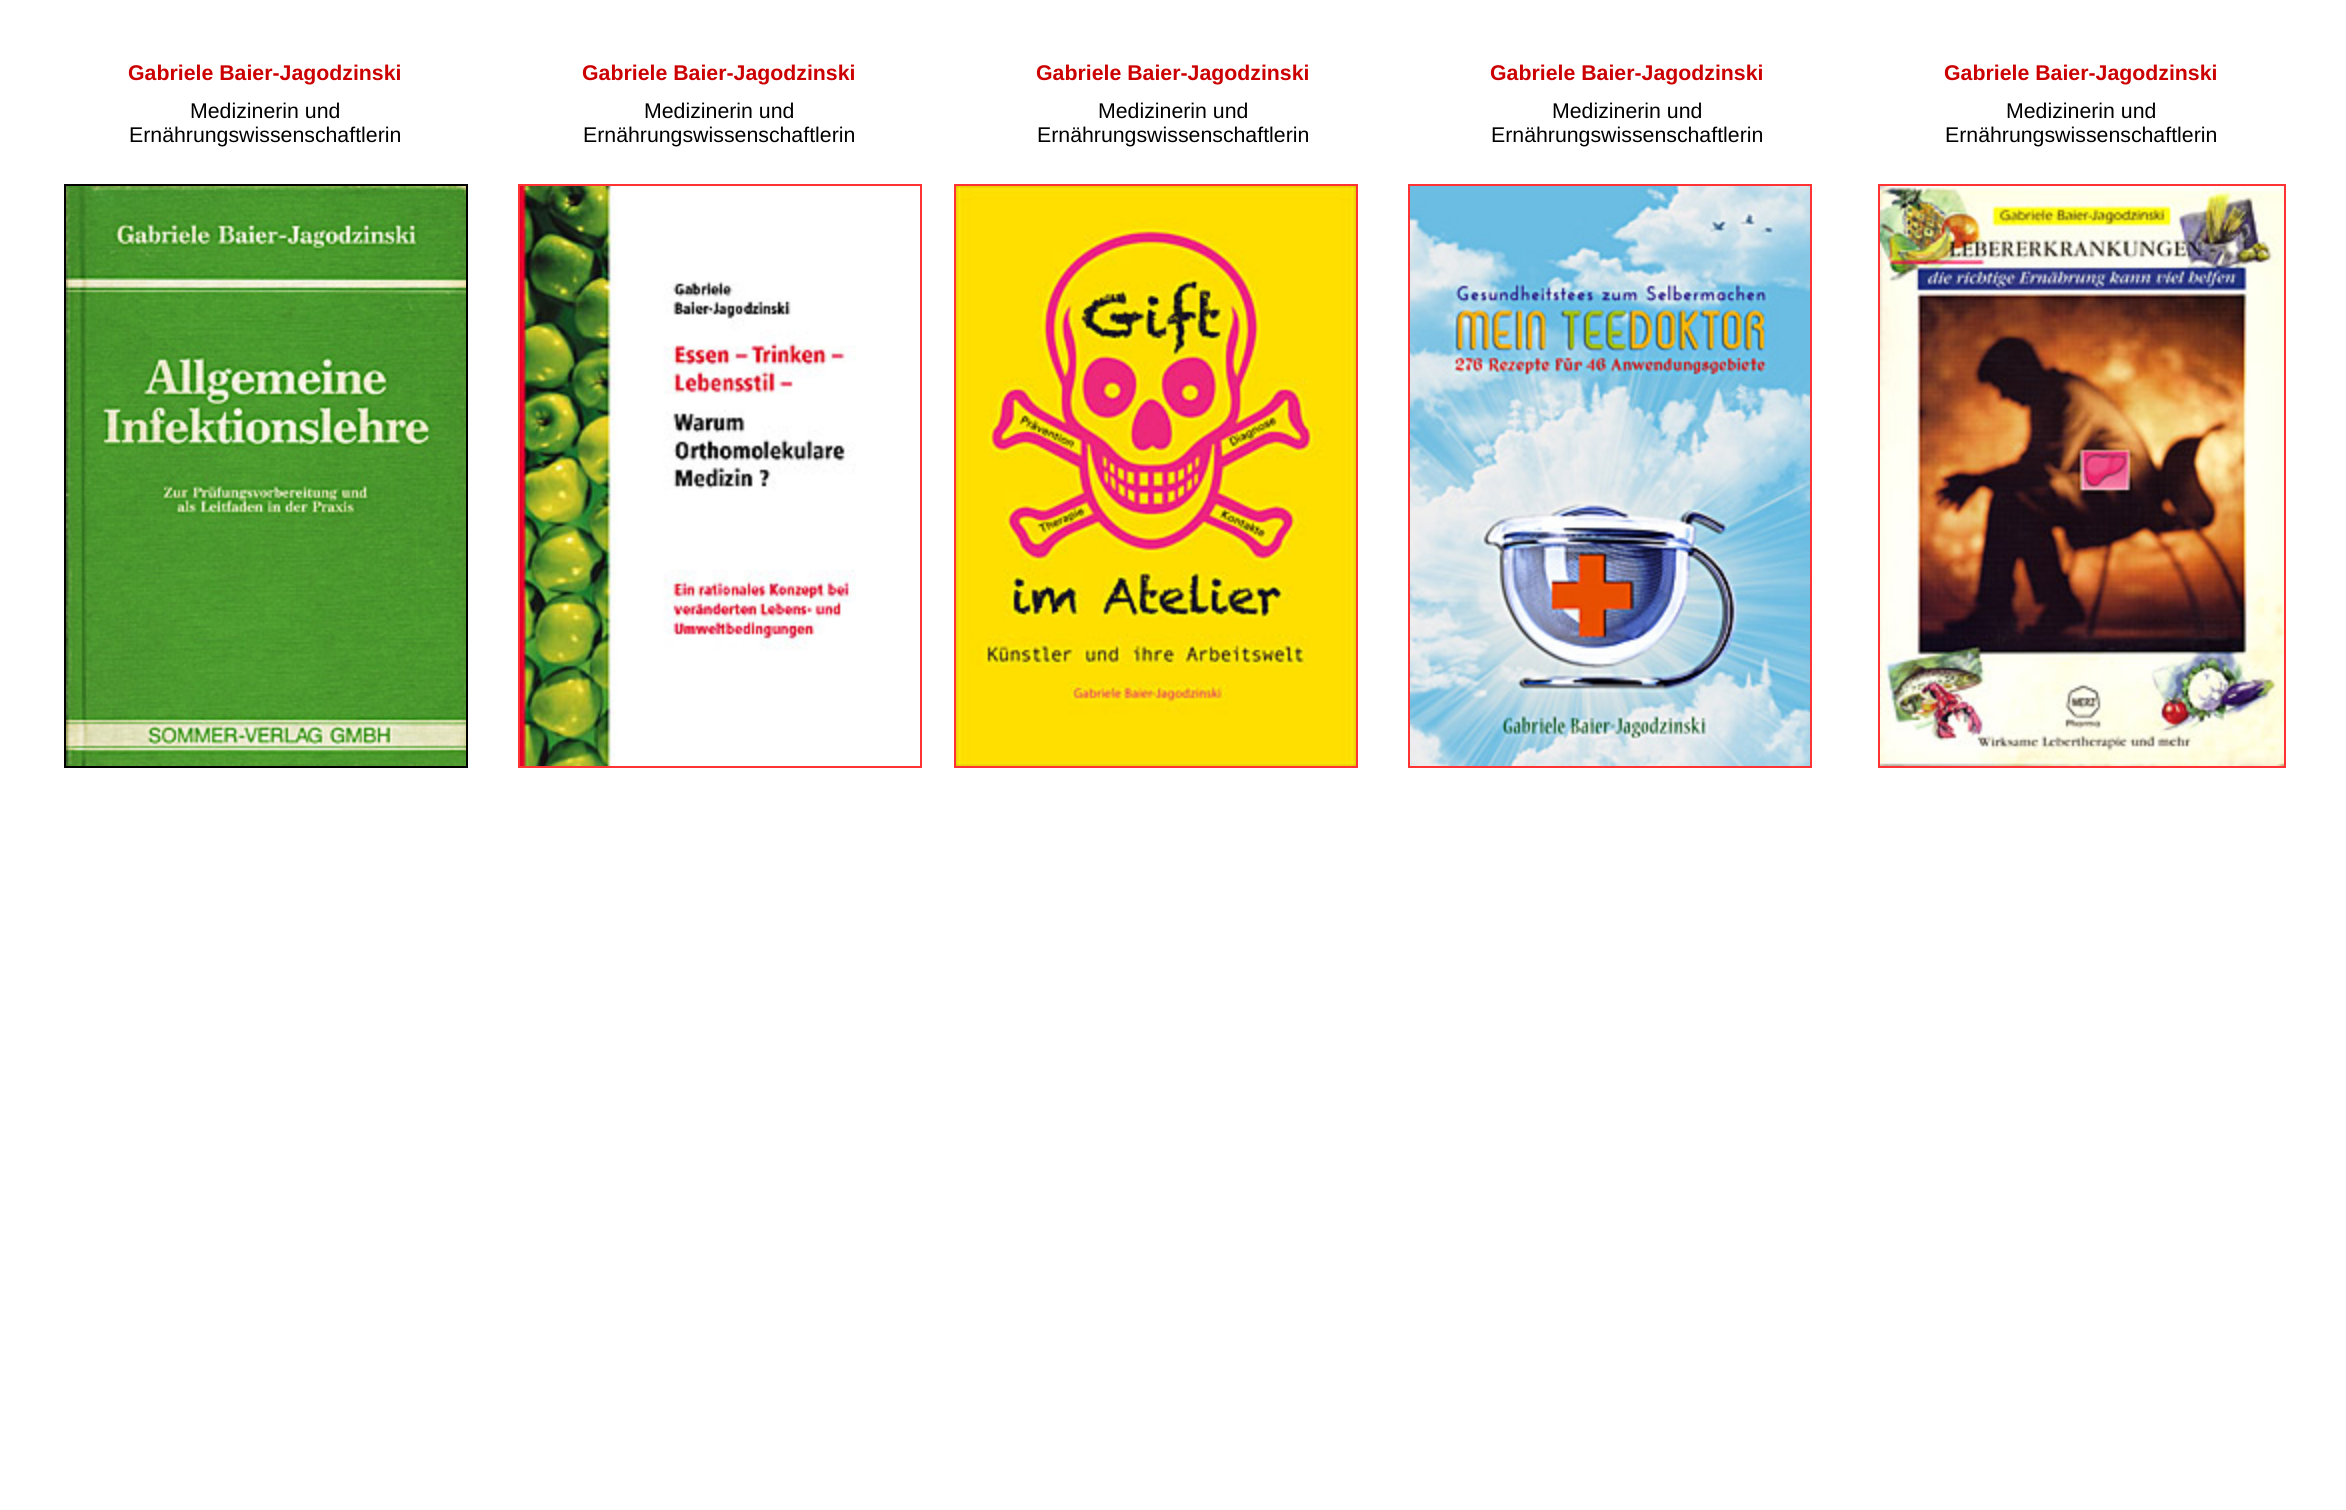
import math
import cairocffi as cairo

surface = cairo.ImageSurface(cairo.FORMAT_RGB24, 2346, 1510)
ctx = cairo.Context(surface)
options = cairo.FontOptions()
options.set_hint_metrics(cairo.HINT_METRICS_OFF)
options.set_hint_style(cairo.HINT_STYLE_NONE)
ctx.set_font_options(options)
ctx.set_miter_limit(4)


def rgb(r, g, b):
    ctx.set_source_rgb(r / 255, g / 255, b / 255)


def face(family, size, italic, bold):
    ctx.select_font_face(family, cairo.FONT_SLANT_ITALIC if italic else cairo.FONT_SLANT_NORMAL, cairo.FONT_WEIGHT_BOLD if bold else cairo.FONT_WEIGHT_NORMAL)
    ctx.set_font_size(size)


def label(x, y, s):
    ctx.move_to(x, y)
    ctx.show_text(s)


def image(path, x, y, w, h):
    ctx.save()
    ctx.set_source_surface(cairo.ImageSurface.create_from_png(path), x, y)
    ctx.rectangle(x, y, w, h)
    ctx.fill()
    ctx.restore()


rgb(255, 255, 255)
ctx.paint()
face('Liberation Sans', 21.3, 0, 1)
rgb(204, 0, 0)
label(128, 80, 'Gabriele Baier-Jagodzinski')
label(582, 80, 'Gabriele Baier-Jagodzinski')
label(1036, 80, 'Gabriele Baier-Jagodzinski')
label(1490, 80, 'Gabriele Baier-Jagodzinski')
label(1944, 80, 'Gabriele Baier-Jagodzinski')
face('Liberation Sans', 21.3, 0, 0)
rgb(0, 0, 0)
label(190, 118, 'Medizinerin und')
label(129, 142, 'Ernährungswissenschaftlerin')
label(644, 118, 'Medizinerin und')
label(583, 142, 'Ernährungswissenschaftlerin')
label(1098, 118, 'Medizinerin und')
label(1037, 142, 'Ernährungswissenschaftlerin')
label(1552, 118, 'Medizinerin und')
label(1491, 142, 'Ernährungswissenschaftlerin')
label(2006, 118, 'Medizinerin und')
label(1945, 142, 'Ernährungswissenschaftlerin')
ctx.rectangle(65, 185, 402, 582)
ctx.stroke()
image('image0.png', 66, 186, 400, 580)
ctx.rectangle(519, 185, 402, 582)
rgb(255, 51, 51)
ctx.stroke()
image('image1.png', 520, 186, 336, 580)
ctx.rectangle(955, 185, 402, 582)
ctx.stroke()
image('image2.png', 956, 186, 400, 580)
ctx.rectangle(1409, 185, 402, 582)
ctx.stroke()
image('image3.png', 1410, 186, 400, 580)
ctx.rectangle(1879, 185, 406, 582)
ctx.stroke()
image('image4.png', 1880, 186, 404, 580)
surface.write_to_png('render.png')
